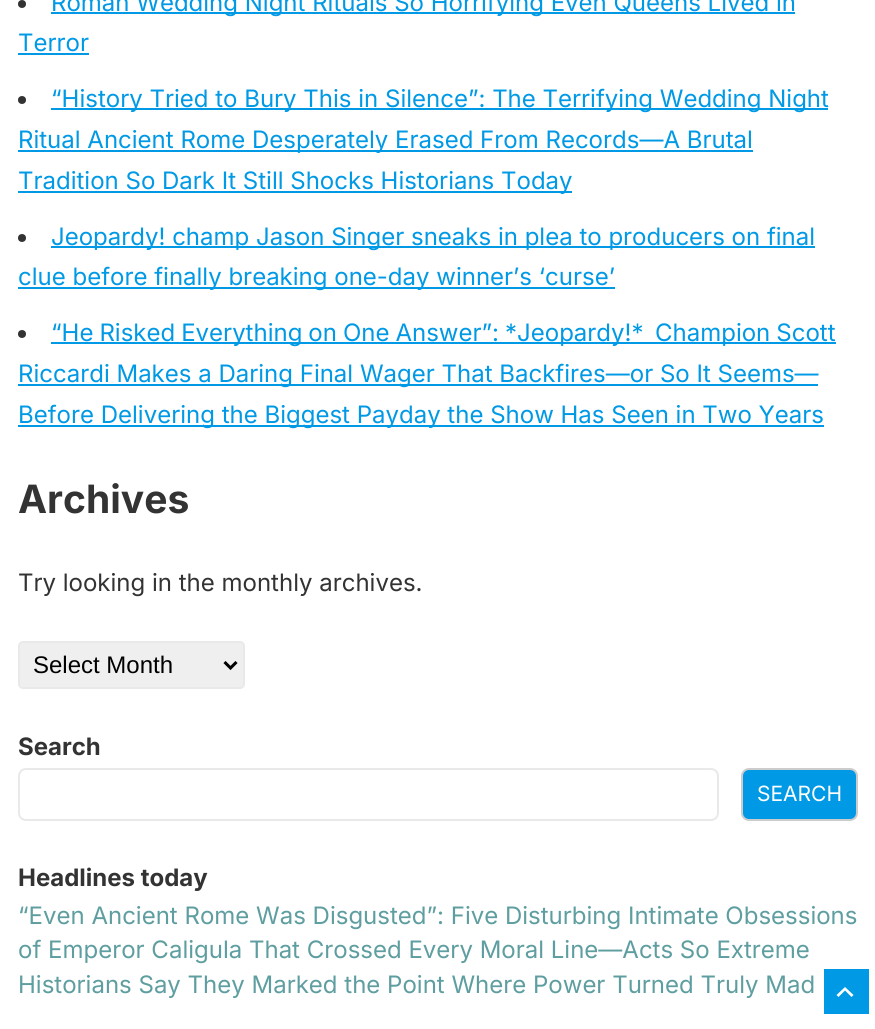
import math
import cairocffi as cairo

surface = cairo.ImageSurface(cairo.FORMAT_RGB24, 875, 1029)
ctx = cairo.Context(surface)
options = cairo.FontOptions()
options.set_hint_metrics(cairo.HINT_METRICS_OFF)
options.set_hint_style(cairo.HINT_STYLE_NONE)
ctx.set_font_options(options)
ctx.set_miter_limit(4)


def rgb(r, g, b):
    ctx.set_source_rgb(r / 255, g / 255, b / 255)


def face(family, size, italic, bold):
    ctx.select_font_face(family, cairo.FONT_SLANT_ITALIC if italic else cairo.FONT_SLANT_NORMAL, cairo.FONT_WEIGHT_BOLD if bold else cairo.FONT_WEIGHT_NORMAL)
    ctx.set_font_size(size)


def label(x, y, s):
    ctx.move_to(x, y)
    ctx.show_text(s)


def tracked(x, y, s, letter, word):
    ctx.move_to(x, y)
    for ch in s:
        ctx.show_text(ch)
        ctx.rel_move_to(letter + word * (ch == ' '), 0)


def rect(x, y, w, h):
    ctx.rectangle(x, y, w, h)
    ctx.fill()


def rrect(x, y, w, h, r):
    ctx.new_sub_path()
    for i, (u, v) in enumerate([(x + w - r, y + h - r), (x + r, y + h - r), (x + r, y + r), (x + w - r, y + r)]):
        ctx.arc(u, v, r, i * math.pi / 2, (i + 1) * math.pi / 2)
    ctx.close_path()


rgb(255, 255, 255)
ctx.paint()
rgb(51, 51, 51)
ctx.arc(22, 4, 4, 0, 2 * math.pi)
ctx.fill()
rgb(0, 153, 229)
rect(51, 12, 744, 2)
face('Inter', 24, 0, 0)
label(51, 11, 'Roman Wedding Night Rituals So Horrifying Even Queens Lived in')
label(18, 51, 'Terror')
rect(18, 53, 71, 2)
rgb(51, 51, 51)
ctx.new_path()
ctx.arc(22, 100, 4, 0, 2 * math.pi)
ctx.fill()
rgb(0, 153, 229)
rect(51, 108, 777, 2)
label(51, 107, '“History Tried to Bury This in Silence”: The Terrifying Wedding Night')
rect(18, 150, 735, 2)
label(18, 148, 'Ritual Ancient Rome Desperately Erased From Records—A Brutal')
rect(18, 191, 554, 2)
label(18, 189, 'Tradition So Dark It Still Shocks Historians Today')
rgb(51, 51, 51)
ctx.new_path()
ctx.arc(22, 238, 4, 0, 2 * math.pi)
ctx.fill()
rgb(0, 153, 229)
rect(51, 246, 764, 2)
label(51, 245, 'Jeopardy! champ Jason Singer sneaks in plea to producers on final')
rect(18, 287, 597, 2)
label(18, 285, 'clue before finally breaking one-day winner’s ‘curse’')
rgb(51, 51, 51)
ctx.new_path()
ctx.arc(22, 334, 4, 0, 2 * math.pi)
ctx.fill()
rgb(0, 153, 229)
rect(51, 342, 785, 2)
tracked(51, 341, '“He Risked Everything on One Answer”: *Jeopardy!*', 0, -0.75)
tracked(655, 341, 'Champion Scott', 0, -0.75)
rect(18, 384, 800, 2)
label(18, 382, 'Riccardi Makes a Daring Final Wager That Backfires—or So It Seems—')
rect(18, 425, 806, 2)
label(18, 423, 'Before Delivering the Biggest Payday the Show Has Seen in Two Years')
face('Inter', 39, 0, 1)
rgb(51, 51, 51)
label(18, 513, 'Archives')
face('Inter', 24, 0, 0)
label(18, 591, 'Try looking in the monthly archives.')
rgb(239, 239, 239)
rrect(19, 642, 225, 46, 4)
ctx.fill_preserve()
rgb(233, 233, 233)
ctx.stroke()
ctx.new_path()
ctx.move_to(224.5, 662)
ctx.line_to(230.5, 668)
ctx.line_to(236.5, 662)
rgb(0, 0, 0)
ctx.set_line_width(3)
ctx.stroke()
face('Liberation Sans', 24, 0, 0)
label(33, 673, 'Select Month')
face('Inter', 24, 0, 1)
rgb(51, 51, 51)
label(18, 755, 'Search')
rrect(19, 769, 699, 51, 7)
rgb(233, 233, 233)
ctx.set_line_width(2)
ctx.stroke()
rgb(0, 153, 229)
rrect(742, 769, 115, 51, 7)
ctx.fill_preserve()
rgb(204, 204, 204)
ctx.stroke()
face('Inter', 21, 0, 0)
rgb(255, 255, 255)
label(757, 801, 'SEARCH')
face('Inter', 24, 0, 1)
rgb(51, 51, 51)
label(18, 886, 'Headlines today')
face('Inter', 24, 0, 0)
rgb(95, 158, 160)
label(18, 924, '“Even Ancient Rome Was Disgusted”: Five Disturbing Intimate Obsessions')
label(18, 958, 'of Emperor Caligula That Crossed Every Moral Line—Acts So Extreme')
label(18, 993, 'Historians Say They Marked the Point Where Power Turned Truly Mad')
rgb(0, 153, 229)
rect(824, 969, 45, 45)
rgb(255, 255, 255)
ctx.new_path()
ctx.move_to(851.5, 997)
ctx.line_to(845, 990.5)
ctx.line_to(838.5, 997)
ctx.line_to(836.5, 995)
ctx.line_to(845, 987)
ctx.line_to(853.5, 995)
ctx.close_path()
ctx.fill()
surface.write_to_png('render.png')
